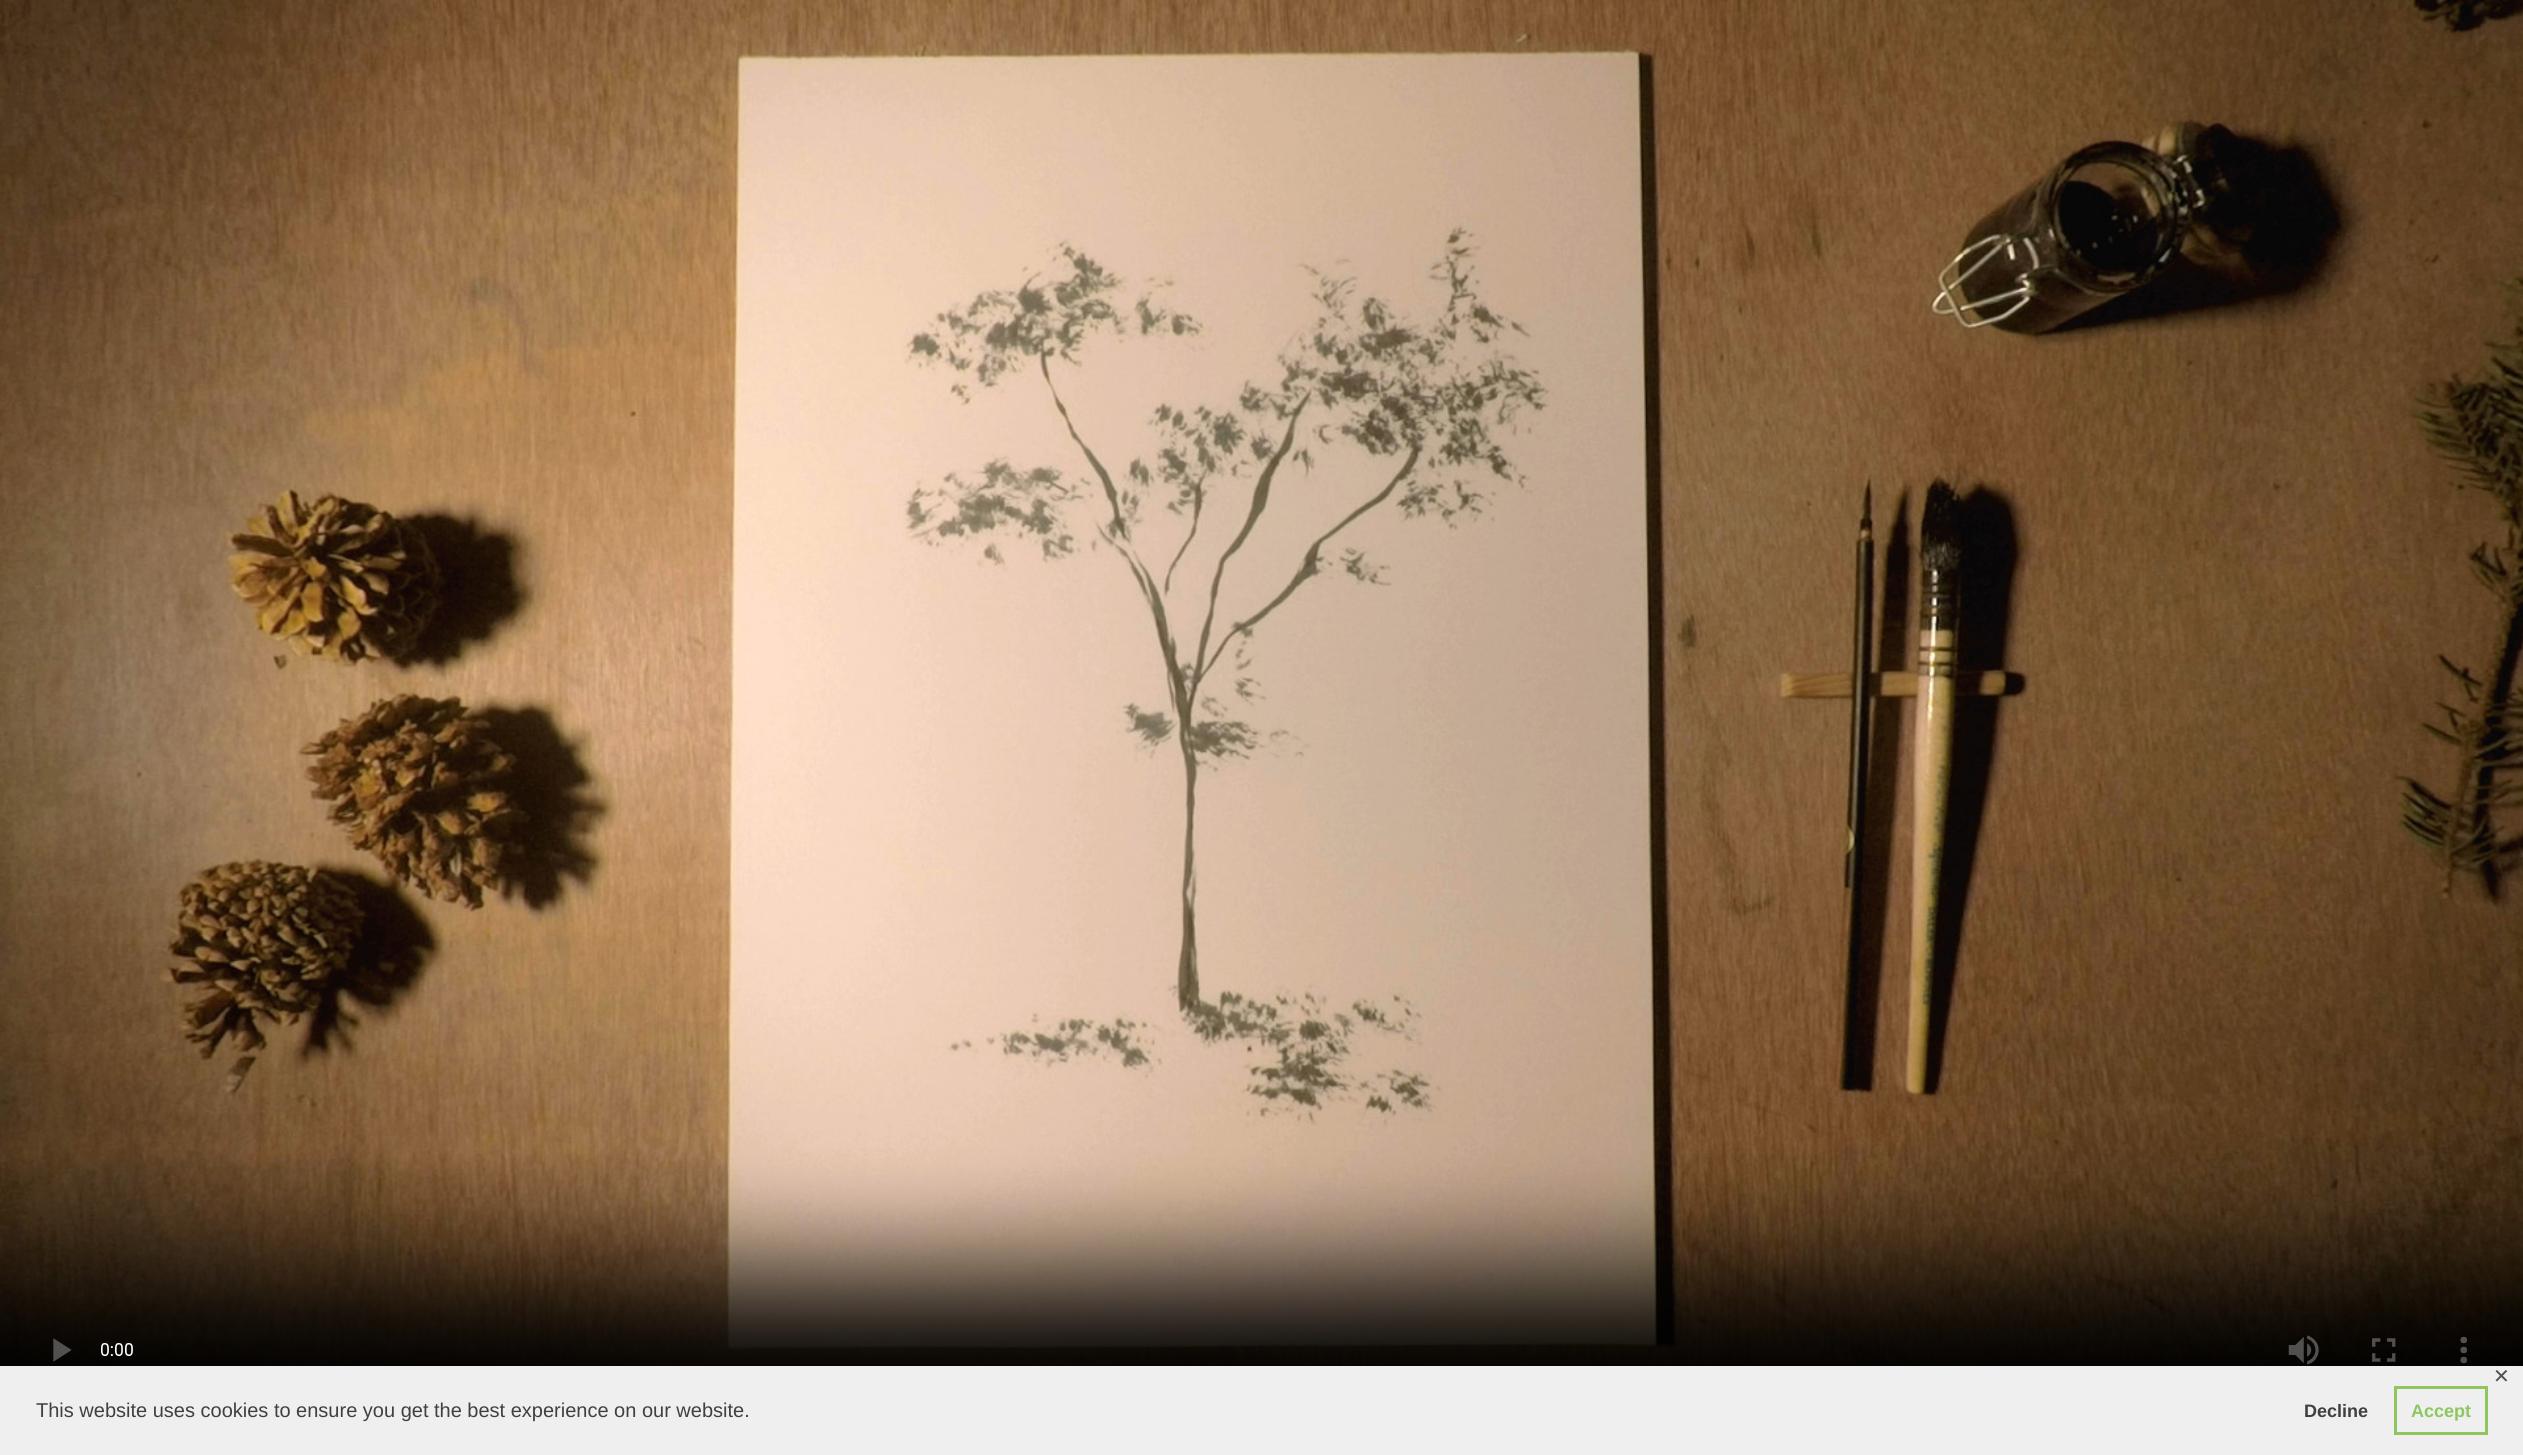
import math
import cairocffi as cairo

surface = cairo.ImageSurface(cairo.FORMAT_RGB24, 2523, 1455)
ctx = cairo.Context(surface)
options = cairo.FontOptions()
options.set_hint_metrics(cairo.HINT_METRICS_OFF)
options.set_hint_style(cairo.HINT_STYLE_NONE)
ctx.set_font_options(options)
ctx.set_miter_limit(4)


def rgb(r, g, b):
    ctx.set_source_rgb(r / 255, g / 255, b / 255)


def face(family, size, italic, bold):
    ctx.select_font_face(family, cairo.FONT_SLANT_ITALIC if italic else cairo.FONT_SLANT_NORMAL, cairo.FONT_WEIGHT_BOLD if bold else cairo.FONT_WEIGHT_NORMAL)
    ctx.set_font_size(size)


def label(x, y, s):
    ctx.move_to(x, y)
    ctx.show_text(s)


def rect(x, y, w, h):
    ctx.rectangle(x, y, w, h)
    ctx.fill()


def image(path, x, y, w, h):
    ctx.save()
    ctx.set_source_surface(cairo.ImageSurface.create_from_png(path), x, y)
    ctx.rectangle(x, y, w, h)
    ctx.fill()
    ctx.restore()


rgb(255, 255, 255)
ctx.paint()
image('image0.png', 0, 0, 2523, 1366)
rgb(239, 239, 239)
rect(0, 1366, 2523, 89)
face('DejaVu Sans', 20, 0, 0)
rgb(82, 82, 82)
label(2493, 1383, '✕')
face('Liberation Sans', 20, 0, 0)
rgb(64, 64, 64)
label(36, 1417, 'This website uses cookies to ensure you get the best experience on our website.')
face('Liberation Sans', 18, 0, 1)
label(2304, 1417, 'Decline')
ctx.rectangle(2395.5, 1387.5, 91, 46)
rgb(142, 199, 96)
ctx.set_line_width(3)
ctx.stroke()
label(2411, 1417, 'Accept')
surface.write_to_png('render.png')
